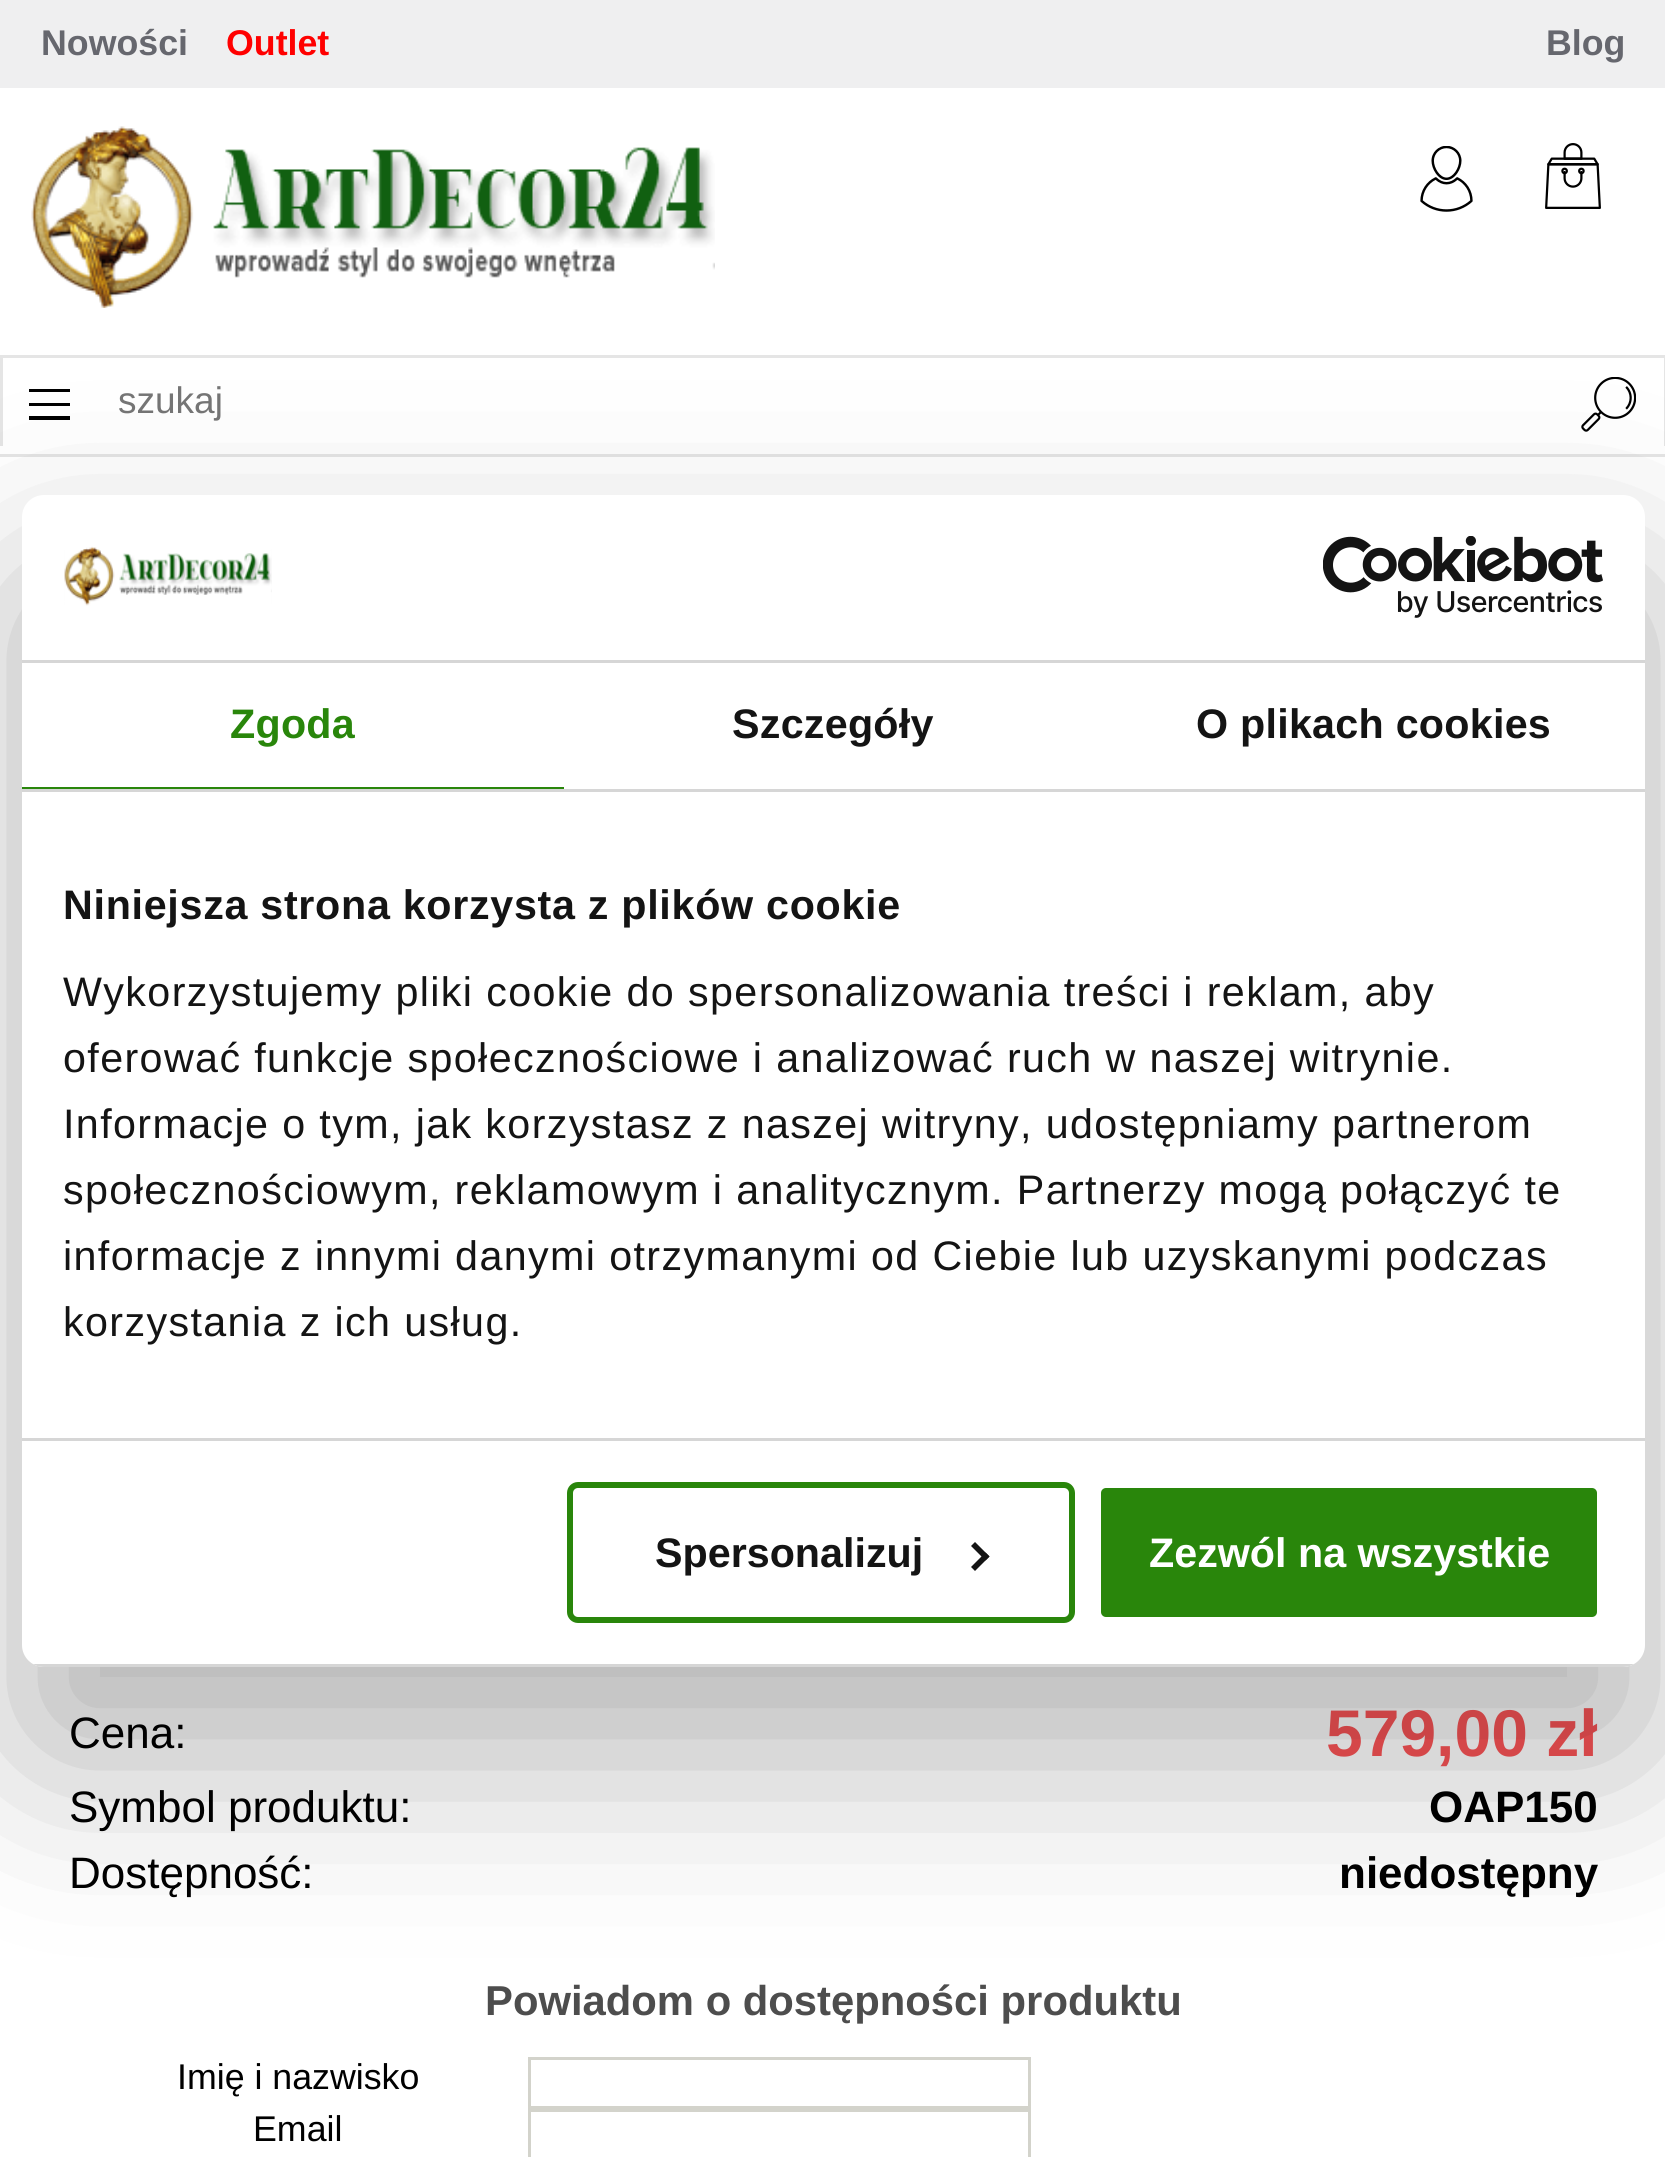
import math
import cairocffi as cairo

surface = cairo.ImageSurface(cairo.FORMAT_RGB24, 1665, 2157)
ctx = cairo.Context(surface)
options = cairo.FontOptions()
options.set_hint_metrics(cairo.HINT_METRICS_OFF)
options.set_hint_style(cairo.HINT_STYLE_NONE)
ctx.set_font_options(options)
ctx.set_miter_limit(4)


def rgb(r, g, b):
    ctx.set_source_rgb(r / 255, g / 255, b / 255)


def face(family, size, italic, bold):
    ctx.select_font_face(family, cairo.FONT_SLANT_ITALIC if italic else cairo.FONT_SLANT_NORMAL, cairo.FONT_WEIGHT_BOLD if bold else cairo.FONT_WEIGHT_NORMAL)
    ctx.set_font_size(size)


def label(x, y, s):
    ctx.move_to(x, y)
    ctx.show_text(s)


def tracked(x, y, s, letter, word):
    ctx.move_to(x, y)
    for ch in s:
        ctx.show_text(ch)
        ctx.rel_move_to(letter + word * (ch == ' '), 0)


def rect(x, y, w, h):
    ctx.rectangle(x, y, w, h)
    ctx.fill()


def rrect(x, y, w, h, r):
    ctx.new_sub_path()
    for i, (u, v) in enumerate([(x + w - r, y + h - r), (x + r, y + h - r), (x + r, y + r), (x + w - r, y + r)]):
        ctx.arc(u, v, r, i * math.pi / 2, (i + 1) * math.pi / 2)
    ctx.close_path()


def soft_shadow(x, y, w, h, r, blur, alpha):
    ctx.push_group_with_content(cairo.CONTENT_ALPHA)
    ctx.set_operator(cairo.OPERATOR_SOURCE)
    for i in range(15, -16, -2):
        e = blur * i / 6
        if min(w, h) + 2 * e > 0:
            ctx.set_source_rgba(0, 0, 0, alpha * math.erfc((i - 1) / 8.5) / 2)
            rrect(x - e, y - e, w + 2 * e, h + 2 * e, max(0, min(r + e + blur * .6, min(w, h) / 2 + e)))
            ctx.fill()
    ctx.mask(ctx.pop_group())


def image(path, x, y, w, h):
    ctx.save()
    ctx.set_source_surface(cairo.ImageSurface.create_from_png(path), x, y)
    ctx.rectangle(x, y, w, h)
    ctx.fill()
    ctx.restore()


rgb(255, 255, 255)
ctx.paint()
rgb(239, 239, 240)
rect(0, 0, 1665, 88)
face('Liberation Sans', 35.75, 0, 1)
rgb(102, 103, 110)
label(41, 55, 'Nowości')
rgb(255, 0, 0)
label(226, 55, 'Outlet')
rgb(102, 103, 110)
label(1546, 55, 'Blog')
image('image0.png', 31, 126, 684, 182)
image('image1.png', 1420, 146, 53, 66)
image('image2.png', 1545, 143, 56, 66)
rgb(229, 229, 229)
rect(0, 355, 1665, 3)
rect(0, 454, 1665, 3)
rgb(0, 0, 0)
ctx.new_path()
ctx.move_to(70, 416)
ctx.line_to(70, 420)
ctx.line_to(29, 420)
ctx.line_to(29, 416)
ctx.close_path()
ctx.move_to(70, 403)
ctx.line_to(70, 406)
ctx.line_to(29, 406)
ctx.line_to(29, 403)
ctx.close_path()
ctx.move_to(70, 389)
ctx.line_to(70, 392)
ctx.line_to(29, 392)
ctx.line_to(29, 389)
ctx.close_path()
ctx.fill()
rgb(229, 229, 229)
rect(1664, 358, 1, 88)
rect(0, 358, 3, 88)
face('Liberation Sans', 37, 0, 0)
rgb(117, 117, 117)
label(118, 413, 'szukaj')
image('image3.png', 1581, 377, 55, 55)
face('Liberation Sans', 44, 0, 0)
rgb(0, 0, 0)
label(69, 1748, 'Cena:')
face('Liberation Sans', 66, 0, 1)
rgb(250, 84, 86)
label(1326, 1756, '579,00 zł')
face('Liberation Sans', 44, 0, 0)
rgb(0, 0, 0)
label(69, 1822, 'Symbol produktu:')
face('Liberation Sans', 44, 0, 1)
label(1429, 1822, 'OAP150')
face('Liberation Sans', 44, 0, 0)
label(69, 1888, 'Dostępność:')
face('Liberation Sans', 44, 0, 1)
label(1339, 1888, 'niedostępny')
face('Liberation Sans', 41.8, 0, 1)
rgb(77, 77, 77)
label(485, 2015, 'Powiadom o dostępności produktu')
face('Liberation Sans', 35.75, 0, 0)
rgb(0, 0, 0)
label(177, 2089, 'Imię i nazwisko')
ctx.rectangle(529.5, 2058.5, 500, 49)
rgb(211, 211, 203)
ctx.set_line_width(3)
ctx.stroke()
rgb(0, 0, 0)
label(253, 2141, 'Email')
ctx.rectangle(529.5, 2110.5, 500, 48)
rgb(211, 211, 203)
ctx.stroke()
rgb(0, 0, 0)
soft_shadow(22, 583, 1623, 1172, 22, 93.5, 0.3)
rgb(255, 255, 255)
rrect(22, 495, 1623, 1172, 22)
ctx.fill()
rgb(214, 214, 214)
rect(22, 660, 1623, 3)
image('image4.png', 64, 546, 208, 60)
image('image5.png', 1323, 536, 280, 82)
rect(22, 789, 1623, 3)
rgb(41, 134, 11)
rect(22, 787, 542, 2)
face('Liberation Sans', 41.25, 0, 1)
tracked(230, 738, 'Zgoda', 0.25, 0)
rgb(20, 20, 20)
tracked(732, 738, 'Szczegóły', 0.25, 0)
tracked(1196, 738, 'O plikach cookies', 0.25, 0)
rgb(214, 214, 214)
rect(22, 1438, 1623, 3)
rgb(20, 20, 20)
tracked(63, 919, 'Niniejsza strona korzysta z plików cookie', 0.7, 0)
face('Liberation Sans', 41.25, 0, 0)
tracked(63, 1006, 'Wykorzystujemy pliki cookie do spersonalizowania treści i reklam, aby', 1.38, 0)
tracked(63, 1072, 'oferować funkcje społecznościowe i analizować ruch w naszej witrynie.', 1.38, 0)
tracked(63, 1138, 'Informacje o tym, jak korzystasz z naszej witryny, udostępniamy partnerom', 1.38, 0)
tracked(63, 1204, 'społecznościowym, reklamowym i analitycznym. Partnerzy mogą połączyć te', 1.38, 0)
tracked(63, 1270, 'informacje z innymi danymi otrzymanymi od Ciebie lub uzyskanymi podczas', 1.38, 0)
tracked(63, 1336, 'korzystania z ich usług.', 1.38, 0)
ctx.save()
rrect(22, 495, 1623, 1172, 22)
ctx.clip()
rgb(214, 214, 214)
rect(33, 1664, 1601, 3)
ctx.restore()
rrect(570, 1485, 502, 135, 8)
rgb(41, 134, 11)
ctx.set_line_width(6)
ctx.stroke()
face('Liberation Sans', 41.25, 0, 1)
rgb(20, 20, 20)
label(655, 1567, 'Spersonalizuj')
ctx.new_path()
ctx.move_to(975, 1542)
ctx.line_to(989.5, 1556.5)
ctx.line_to(985.5, 1560.5)
ctx.line_to(971, 1546)
ctx.close_path()
ctx.fill()
ctx.new_path()
ctx.move_to(985.5, 1552.5)
ctx.line_to(989.5, 1556.5)
ctx.line_to(975, 1571)
ctx.line_to(971, 1567)
ctx.close_path()
ctx.fill()
rgb(41, 134, 11)
rrect(1098, 1485, 502, 135, 8)
ctx.fill_preserve()
rgb(255, 255, 255)
ctx.stroke()
label(1149, 1567, 'Zezwól na wszystkie')
surface.write_to_png('render.png')
